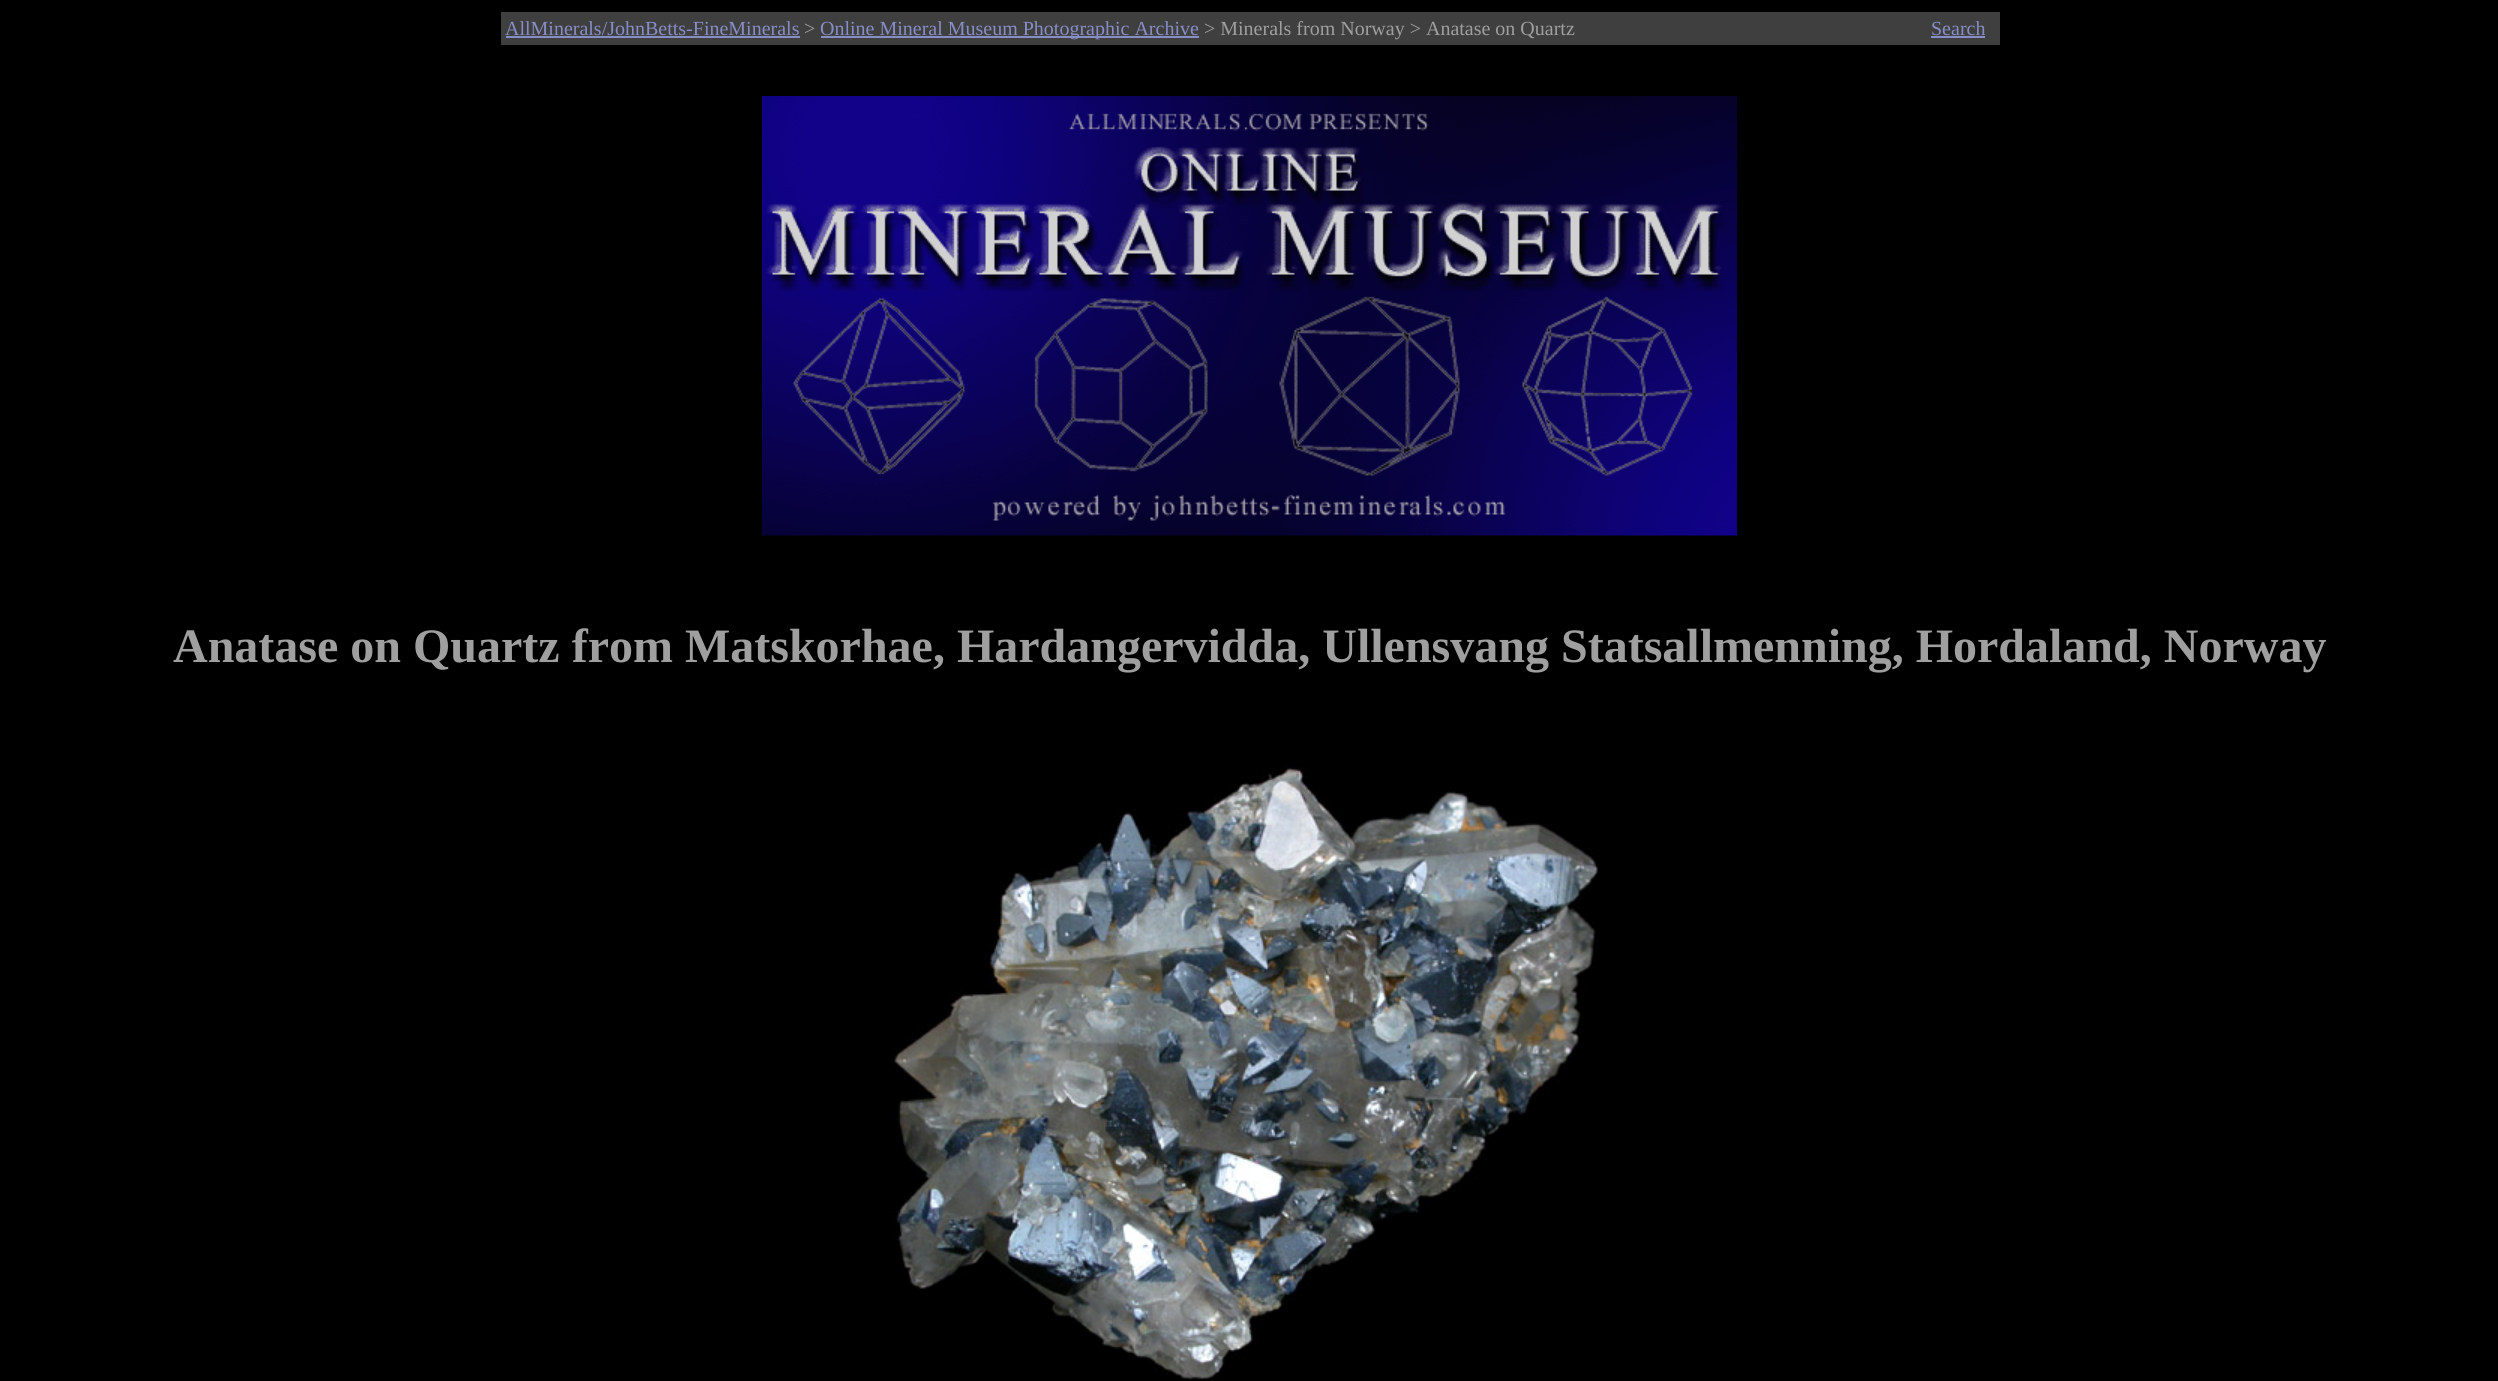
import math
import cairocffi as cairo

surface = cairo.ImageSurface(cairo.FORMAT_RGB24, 2498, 1381)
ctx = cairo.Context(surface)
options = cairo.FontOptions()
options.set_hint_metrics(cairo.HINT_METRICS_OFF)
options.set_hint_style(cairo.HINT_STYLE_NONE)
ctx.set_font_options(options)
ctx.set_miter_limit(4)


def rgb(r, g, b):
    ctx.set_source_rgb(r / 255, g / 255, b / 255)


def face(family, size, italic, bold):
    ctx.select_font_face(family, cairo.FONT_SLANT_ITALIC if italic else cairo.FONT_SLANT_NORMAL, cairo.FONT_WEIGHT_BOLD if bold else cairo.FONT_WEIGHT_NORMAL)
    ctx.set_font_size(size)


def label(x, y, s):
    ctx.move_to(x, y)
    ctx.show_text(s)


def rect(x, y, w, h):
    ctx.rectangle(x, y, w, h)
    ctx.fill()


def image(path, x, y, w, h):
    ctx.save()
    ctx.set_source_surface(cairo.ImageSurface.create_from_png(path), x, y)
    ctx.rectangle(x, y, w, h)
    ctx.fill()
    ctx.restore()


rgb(0, 0, 0)
ctx.paint()
rgb(63, 63, 63)
rect(501, 12, 1499, 33)
face('Liberation Serif', 20, 0, 0)
rgb(135, 141, 197)
label(505, 35, 'AllMinerals/JohnBetts-FineMinerals')
rect(506, 36, 294, 2)
rgb(159, 159, 159)
label(804, 35, '>')
rgb(135, 141, 197)
rect(821, 36, 378, 2)
label(820, 35, 'Online Mineral Museum Photographic Archive')
rgb(159, 159, 159)
label(1204, 35, '> Minerals from Norway > Anatase on Quartz')
rgb(135, 141, 197)
label(1931, 35, 'Search')
rect(1931, 36, 54, 2)
image('image0.png', 762, 96, 975, 440)
face('Liberation Serif', 48, 0, 1)
rgb(159, 159, 159)
label(173, 662, 'Anatase on Quartz from Matskorhae, Hardangervidda, Ullensvang Statsallmenning, Hordaland, Norway')
image('image1.png', 891, 766, 707, 614)
surface.write_to_png('render.png')
